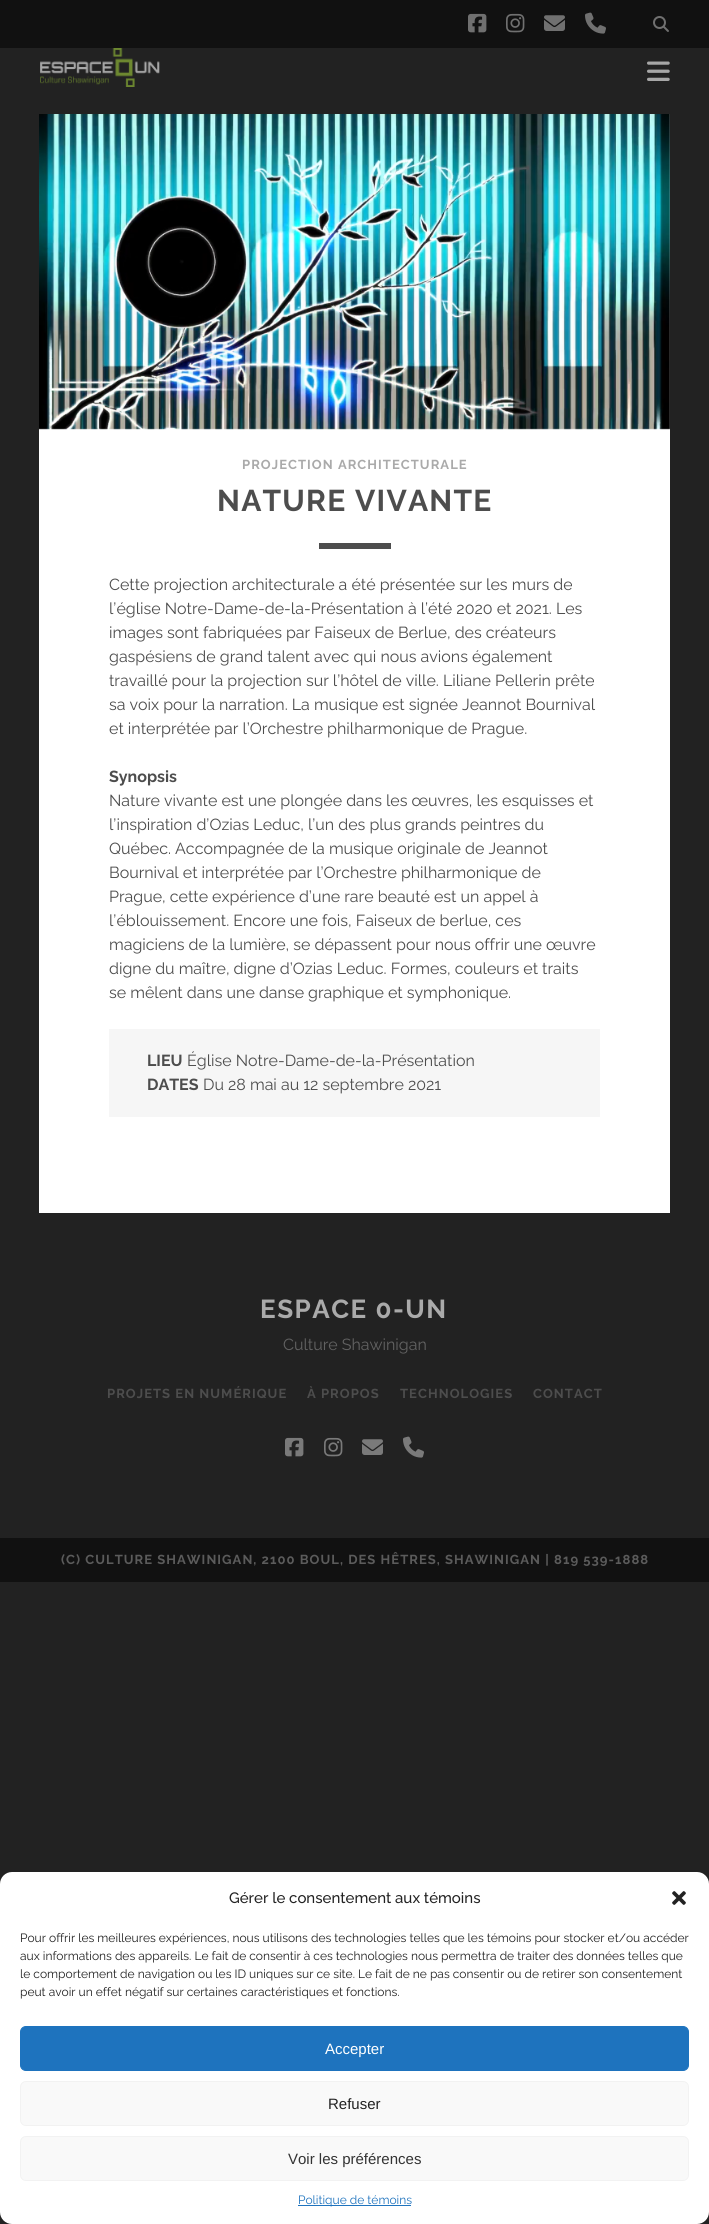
import math
import cairocffi as cairo

surface = cairo.ImageSurface(cairo.FORMAT_RGB24, 709, 2224)
ctx = cairo.Context(surface)
options = cairo.FontOptions()
options.set_hint_metrics(cairo.HINT_METRICS_OFF)
options.set_hint_style(cairo.HINT_STYLE_NONE)
ctx.set_font_options(options)
ctx.set_miter_limit(4)


def rgb(r, g, b):
    ctx.set_source_rgb(r / 255, g / 255, b / 255)


def face(family, size, italic, bold):
    ctx.select_font_face(family, cairo.FONT_SLANT_ITALIC if italic else cairo.FONT_SLANT_NORMAL, cairo.FONT_WEIGHT_BOLD if bold else cairo.FONT_WEIGHT_NORMAL)
    ctx.set_font_size(size)


def label(x, y, s):
    ctx.move_to(x, y)
    ctx.show_text(s)


def tracked(x, y, s, letter, word):
    ctx.move_to(x, y)
    for ch in s:
        ctx.show_text(ch)
        ctx.rel_move_to(letter + word * (ch == ' '), 0)


def rect(x, y, w, h):
    ctx.rectangle(x, y, w, h)
    ctx.fill()


def rrect(x, y, w, h, r):
    ctx.new_sub_path()
    for i, (u, v) in enumerate([(x + w - r, y + h - r), (x + r, y + h - r), (x + r, y + r), (x + w - r, y + r)]):
        ctx.arc(u, v, r, i * math.pi / 2, (i + 1) * math.pi / 2)
    ctx.close_path()


def image(path, x, y, w, h):
    ctx.save()
    ctx.set_source_surface(cairo.ImageSurface.create_from_png(path), x, y)
    ctx.rectangle(x, y, w, h)
    ctx.fill()
    ctx.restore()


rgb(34, 34, 34)
ctx.paint()
rgb(17, 17, 17)
rect(0, 0, 709, 48)
image('image0.png', 468, 13, 19, 20)
image('image1.png', 506, 13, 19, 20)
image('image2.png', 544, 15, 21, 16)
image('image3.png', 585, 12, 21, 22)
image('image4.png', 653, 16, 16, 16)
image('image5.png', 40, 48, 120, 39)
image('image6.png', 647, 61, 23, 20)
rgb(255, 255, 255)
rect(39, 114, 631, 1099)
image('image7.png', 39, 114, 631, 316)
face('Raleway', 13, 0, 1)
rgb(170, 170, 170)
tracked(242, 469, 'PROJECTION ARCHITECTURALE', 1.05, 0)
face('Raleway', 30, 0, 1)
rgb(77, 77, 77)
tracked(217, 511, 'NATURE VIVANTE', 1.25, 0)
rect(319, 543, 72, 6)
face('Raleway', 16, 0, 0)
label(109, 590, 'Cette projection architecturale a été présentée sur les murs de')
label(109, 614, 'l’église Notre-Dame-de-la-Présentation à l’été 2020 et 2021. Les')
label(109, 638, 'images sont fabriquées par Faiseux de Berlue, des créateurs')
label(109, 662, 'gaspésiens de grand talent avec qui nous avions également')
label(109, 686, 'travaillé pour la projection sur l’hôtel de ville. Liliane Pellerin prête')
label(109, 710, 'sa voix pour la narration. La musique est signée Jeannot Bournival')
label(109, 734, 'et interprétée par l’Orchestre philharmonique de Prague.')
face('Raleway', 16, 0, 1)
label(109, 782, 'Synopsis')
face('Raleway', 16, 0, 0)
label(109, 806, 'Nature vivante est une plongée dans les œuvres, les esquisses et')
label(109, 830, 'l’inspiration d’Ozias Leduc, l’un des plus grands peintres du')
label(109, 854, 'Québec. Accompagnée de la musique originale de Jeannot')
label(109, 878, 'Bournival et interprétée par l’Orchestre philharmonique de')
label(109, 902, 'Prague, cette expérience d’une rare beauté est un appel à')
label(109, 926, 'l’éblouissement. Encore une fois, Faiseux de berlue, ces')
label(109, 950, 'magiciens de la lumière, se dépassent pour nous offrir une œuvre')
label(109, 974, 'digne du maître, digne d’Ozias Leduc. Formes, couleurs et traits')
label(109, 998, 'se mêlent dans une danse graphique et symphonique.')
rgb(246, 246, 246)
rect(109, 1029, 491, 88)
face('Raleway', 16, 0, 1)
rgb(77, 77, 77)
label(147, 1066, 'LIEU')
face('Raleway', 16, 0, 0)
label(187, 1066, 'Église Notre-Dame-de-la-Présentation')
face('Raleway', 16, 0, 1)
label(147, 1090, 'DATES')
face('Raleway', 16, 0, 0)
label(203, 1090, 'Du 28 mai au 12 septembre 2021')
face('Raleway', 26, 0, 1)
rgb(170, 170, 170)
tracked(260, 1318, 'ESPACE 0-UN', 1.5, 0)
face('Raleway', 16, 0, 0)
rgb(98, 98, 98)
label(283, 1350, 'Culture Shawinigan')
face('Raleway', 13, 0, 1)
rgb(77, 77, 77)
tracked(107, 1398, 'PROJETS EN NUMÉRIQUE', 1.05, 0)
tracked(307, 1398, 'À PROPOS', 1.05, 0)
tracked(400, 1398, 'TECHNOLOGIES', 1.05, 0)
tracked(533, 1398, 'CONTACT', 1.05, 0)
image('image8.png', 285, 1437, 19, 20)
image('image9.png', 324, 1437, 19, 20)
image('image10.png', 362, 1439, 21, 16)
image('image11.png', 403, 1436, 21, 22)
rgb(17, 17, 17)
rect(0, 1538, 709, 44)
rgb(91, 91, 91)
tracked(61, 1564, '(C) CULTURE SHAWINIGAN, 2100 BOUL, DES HÊTRES, SHAWINIGAN | 819 539-1888', 1.05, 0)
rgb(255, 255, 255)
rrect(0, 1872, 709, 352, 12)
ctx.fill()
face('Raleway Medium', 15, 0, 0)
rgb(34, 34, 34)
label(229, 1903, 'Gérer le consentement aux témoins')
image('image12.png', 672, 1891, 14, 14)
face('Raleway', 12, 0, 0)
label(20, 1942, 'Pour offrir les meilleures expériences, nous utilisons des technologies telles que les témoins pour stocker et/ou accéder')
label(20, 1960, 'aux informations des appareils. Le fait de consentir à ces technologies nous permettra de traiter des données telles que')
label(20, 1978, 'le comportement de navigation ou les ID uniques sur ce site. Le fait de ne pas consentir ou de retirer son consentement')
label(20, 1996, 'peut avoir un effet négatif sur certaines caractéristiques et fonctions.')
rgb(30, 115, 190)
rrect(20.5, 2026.5, 668, 44, 5.5)
ctx.fill_preserve()
ctx.set_line_width(1)
ctx.stroke()
face('Liberation Sans', 15, 0, 0)
rgb(255, 255, 255)
label(325, 2054, 'Accepter')
rgb(249, 249, 249)
rrect(20.5, 2081.5, 668, 44, 5.5)
ctx.fill_preserve()
rgb(242, 242, 242)
ctx.stroke()
rgb(34, 34, 34)
label(328, 2109, 'Refuser')
rgb(249, 249, 249)
rrect(20.5, 2136.5, 668, 44, 5.5)
ctx.fill_preserve()
rgb(242, 242, 242)
ctx.stroke()
rgb(51, 51, 51)
label(288, 2164, 'Voir les préférences')
rgb(30, 115, 190)
rect(298, 2205, 113, 1)
face('Raleway', 12, 0, 0)
label(298, 2204, 'Politique de témoins')
surface.write_to_png('render.png')
